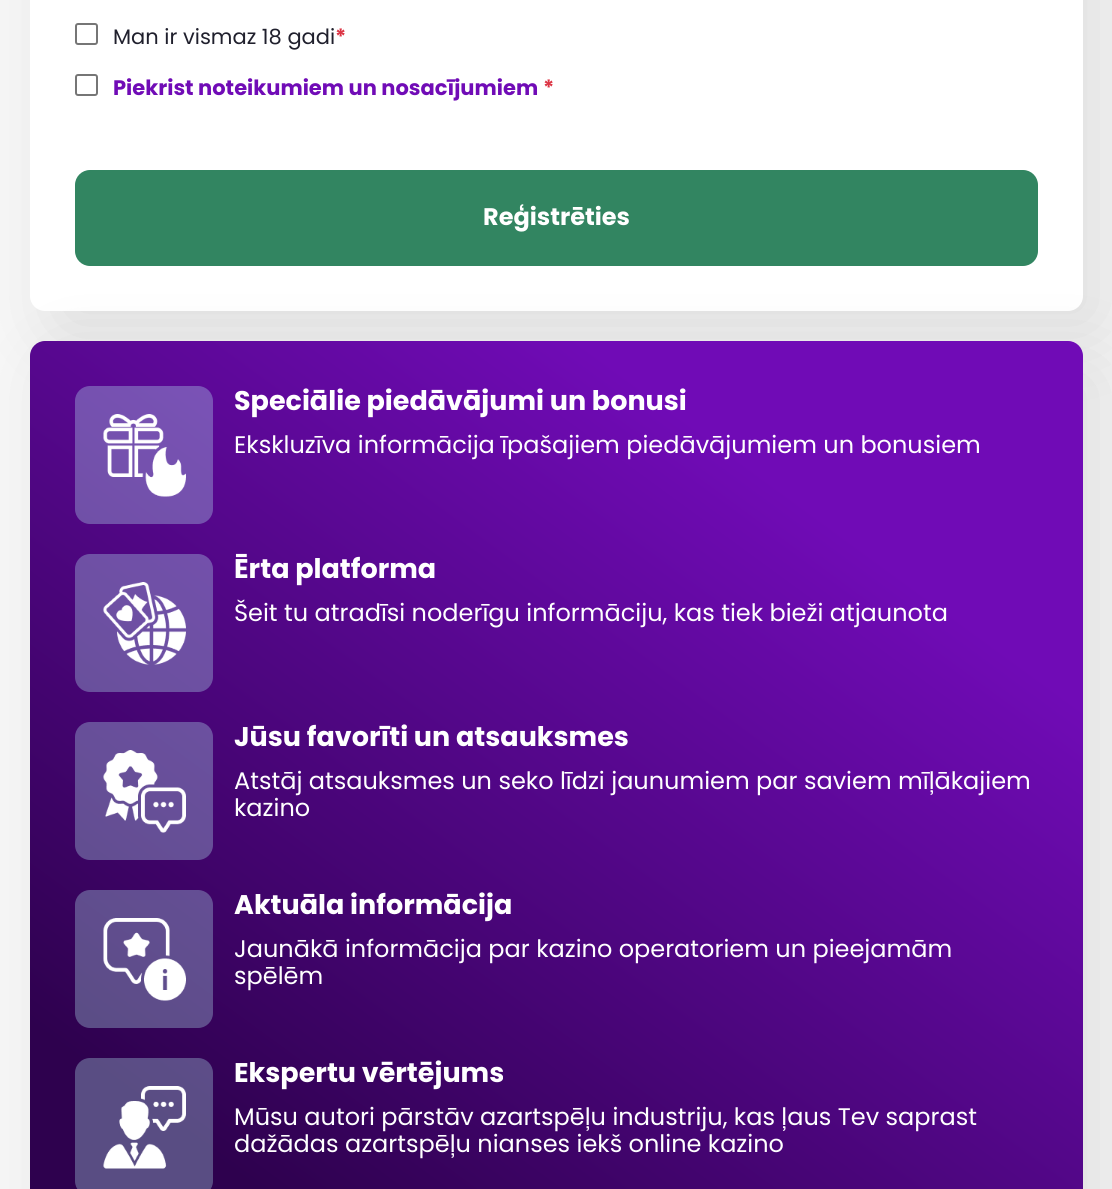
import math
import cairocffi as cairo

surface = cairo.ImageSurface(cairo.FORMAT_RGB24, 1112, 1189)
ctx = cairo.Context(surface)
options = cairo.FontOptions()
options.set_hint_metrics(cairo.HINT_METRICS_OFF)
options.set_hint_style(cairo.HINT_STYLE_NONE)
ctx.set_font_options(options)
ctx.set_miter_limit(4)


def rgb(r, g, b):
    ctx.set_source_rgb(r / 255, g / 255, b / 255)


def face(family, size, italic, bold):
    ctx.select_font_face(family, cairo.FONT_SLANT_ITALIC if italic else cairo.FONT_SLANT_NORMAL, cairo.FONT_WEIGHT_BOLD if bold else cairo.FONT_WEIGHT_NORMAL)
    ctx.set_font_size(size)


def label(x, y, s):
    ctx.move_to(x, y)
    ctx.show_text(s)


def rrect(x, y, w, h, r):
    ctx.new_sub_path()
    for i, (u, v) in enumerate([(x + w - r, y + h - r), (x + r, y + h - r), (x + r, y + r), (x + w - r, y + r)]):
        ctx.arc(u, v, r, i * math.pi / 2, (i + 1) * math.pi / 2)
    ctx.close_path()


def soft_shadow(x, y, w, h, r, blur, alpha):
    ctx.push_group_with_content(cairo.CONTENT_ALPHA)
    ctx.set_operator(cairo.OPERATOR_SOURCE)
    for i in range(15, -16, -2):
        e = blur * i / 6
        if min(w, h) + 2 * e > 0:
            ctx.set_source_rgba(0, 0, 0, alpha * math.erfc((i - 1) / 8.5) / 2)
            rrect(x - e, y - e, w + 2 * e, h + 2 * e, max(0, min(r + e + blur * .6, min(w, h) / 2 + e)))
            ctx.fill()
    ctx.mask(ctx.pop_group())


def image(path, x, y, w, h):
    ctx.save()
    ctx.set_source_surface(cairo.ImageSurface.create_from_png(path), x, y)
    ctx.rectangle(x, y, w, h)
    ctx.fill()
    ctx.restore()


rgb(247, 247, 247)
ctx.paint()
rgb(0, 0, 0)
soft_shadow(53, -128, 1053, 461, 15, 37.5, 0.1)
rgb(255, 255, 255)
rrect(30, -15, 1053, 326, 15)
ctx.fill()
rrect(76, 24, 21, 20, 2)
rgb(118, 118, 118)
ctx.stroke()
face('Poppins', 21, 0, 0)
rgb(32, 32, 45)
label(113, 44, 'Man ir vismaz 18 gadi')
face('Poppins', 21, 0, 1)
rgb(220, 53, 69)
label(335, 44, '*')
rrect(76, 75, 21, 20, 2)
rgb(118, 118, 118)
ctx.stroke()
rgb(112, 11, 182)
label(113, 95, 'Piekrist noteikumiem un nosacījumiem')
rgb(220, 53, 69)
label(543, 95, '*')
rgb(0, 0, 0)
soft_shadow(53, 363, 1053, 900, 15, 37.5, 0.1)
rgb(50, 133, 97)
rrect(75, 170, 963, 96, 15)
ctx.fill()
face('Poppins', 24, 0, 1)
rgb(255, 255, 255)
label(483, 225, 'Reģistrēties')
gradient = cairo.LinearGradient(159, 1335, 954, 246)
gradient.add_color_stop_rgba(0.13, 0.18, 0.004, 0.306, 1)
gradient.add_color_stop_rgba(0.78, 0.439, 0.043, 0.714, 1)
ctx.set_source(gradient)
rrect(30, 341, 1053, 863, 15)
ctx.fill()
ctx.set_source_rgba(0.745, 1, 1, 0.3)
rrect(75, 386, 138, 138, 15)
ctx.fill()
image('image0.png', 103, 414, 83, 83)
face('Poppins', 27, 0, 1)
rgb(255, 255, 255)
label(234, 410, 'Speciālie piedāvājumi un bonusi')
face('Poppins', 24, 0, 0)
label(234, 453, 'Ekskluzīva informācija īpašajiem piedāvājumiem un bonusiem')
ctx.set_source_rgba(0.745, 1, 1, 0.3)
rrect(75, 554, 138, 138, 15)
ctx.fill()
image('image1.png', 103, 582, 83, 83)
face('Poppins', 27, 0, 1)
rgb(255, 255, 255)
label(234, 578, 'Ērta platforma')
face('Poppins', 24, 0, 0)
label(234, 621, 'Šeit tu atradīsi noderīgu informāciju, kas tiek bieži atjaunota')
ctx.set_source_rgba(0.745, 1, 1, 0.3)
rrect(75, 722, 138, 138, 15)
ctx.fill()
image('image2.png', 103, 750, 83, 83)
face('Poppins', 27, 0, 1)
rgb(255, 255, 255)
label(234, 746, 'Jūsu favorīti un atsauksmes')
face('Poppins', 24, 0, 0)
label(234, 789, 'Atstāj atsauksmes un seko līdzi jaunumiem par saviem mīļākajiem')
label(234, 816, 'kazino')
ctx.set_source_rgba(0.745, 1, 1, 0.3)
rrect(75, 890, 138, 138, 15)
ctx.fill()
image('image3.png', 103, 918, 83, 83)
face('Poppins', 27, 0, 1)
rgb(255, 255, 255)
label(234, 914, 'Aktuāla informācija')
face('Poppins', 24, 0, 0)
label(234, 957, 'Jaunākā informācija par kazino operatoriem un pieejamām')
label(234, 984, 'spēlēm')
ctx.set_source_rgba(0.745, 1, 1, 0.3)
rrect(75, 1058, 138, 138, 15)
ctx.fill()
image('image4.png', 103, 1086, 83, 83)
face('Poppins', 27, 0, 1)
rgb(255, 255, 255)
label(234, 1082, 'Ekspertu vērtējums')
face('Poppins', 24, 0, 0)
label(234, 1125, 'Mūsu autori pārstāv azartspēļu industriju, kas ļaus Tev saprast')
label(234, 1152, 'dažādas azartspēļu nianses iekš online kazino')
surface.write_to_png('render.png')
